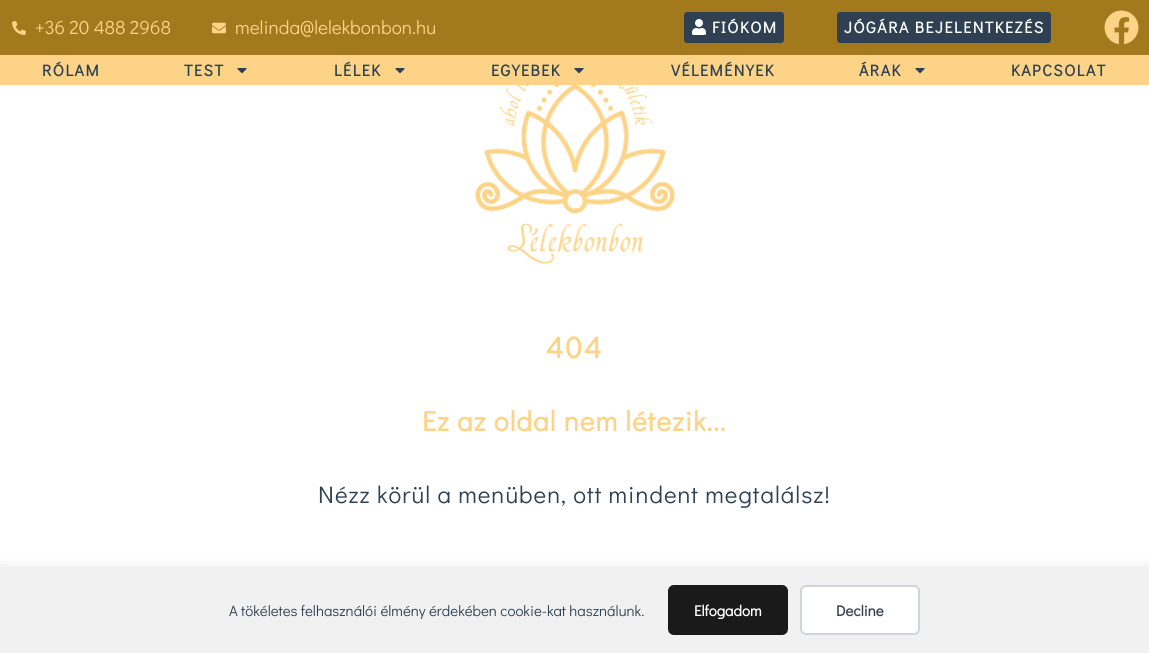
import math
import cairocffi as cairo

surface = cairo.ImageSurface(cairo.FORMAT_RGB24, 1149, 653)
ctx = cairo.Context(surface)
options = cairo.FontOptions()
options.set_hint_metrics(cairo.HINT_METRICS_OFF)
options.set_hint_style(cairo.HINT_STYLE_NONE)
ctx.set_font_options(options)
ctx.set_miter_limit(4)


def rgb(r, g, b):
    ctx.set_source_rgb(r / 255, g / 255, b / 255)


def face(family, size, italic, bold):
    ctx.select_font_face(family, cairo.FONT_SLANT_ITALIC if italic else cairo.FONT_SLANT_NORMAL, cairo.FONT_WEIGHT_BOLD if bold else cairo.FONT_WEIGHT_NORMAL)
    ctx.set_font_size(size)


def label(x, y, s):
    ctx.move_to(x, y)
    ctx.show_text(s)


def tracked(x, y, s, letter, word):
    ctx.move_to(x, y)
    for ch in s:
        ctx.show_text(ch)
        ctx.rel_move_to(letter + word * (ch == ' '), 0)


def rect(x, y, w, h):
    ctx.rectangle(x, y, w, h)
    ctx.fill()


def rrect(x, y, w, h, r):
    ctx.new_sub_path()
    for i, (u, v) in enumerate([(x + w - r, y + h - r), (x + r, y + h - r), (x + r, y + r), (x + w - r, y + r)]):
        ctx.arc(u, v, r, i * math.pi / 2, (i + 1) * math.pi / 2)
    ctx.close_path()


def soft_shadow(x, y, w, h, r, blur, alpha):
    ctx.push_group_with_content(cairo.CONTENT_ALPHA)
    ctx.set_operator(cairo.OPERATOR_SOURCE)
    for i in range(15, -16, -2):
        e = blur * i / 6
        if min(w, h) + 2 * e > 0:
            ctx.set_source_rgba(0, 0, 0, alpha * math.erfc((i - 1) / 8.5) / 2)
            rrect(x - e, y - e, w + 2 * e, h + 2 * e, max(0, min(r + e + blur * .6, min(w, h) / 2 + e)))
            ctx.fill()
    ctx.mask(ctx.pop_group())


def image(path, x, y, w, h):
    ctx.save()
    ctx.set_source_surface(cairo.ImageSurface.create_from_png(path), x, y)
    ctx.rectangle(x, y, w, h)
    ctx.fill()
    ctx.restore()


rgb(255, 255, 255)
ctx.paint()
rgb(162, 121, 29)
rect(0, 0, 1149, 55)
image('image0.png', 12, 21, 14, 14)
face('Didact Gothic', 19, 0, 0)
rgb(253, 212, 135)
label(35, 34, '+36 20 488 2968')
image('image1.png', 212, 22, 14, 12)
label(235, 34, 'melinda@lelekbonbon.hu')
rgb(46, 64, 82)
rrect(684, 12, 100, 31, 3)
ctx.fill()
image('image2.png', 692, 19, 14, 16)
face('Didact Gothic', 16, 0, 1)
rgb(255, 255, 255)
tracked(712, 33, 'FIÓKOM', 1.5, 0)
rgb(46, 64, 82)
rrect(837, 12, 214, 31, 3)
ctx.fill()
rgb(255, 255, 255)
tracked(844, 33, 'JÓGÁRA BEJELENTKEZÉS', 1.5, 0)
image('image3.png', 1104, 10, 35, 35)
rgb(253, 212, 135)
rect(0, 55, 1149, 30)
rgb(46, 64, 82)
tracked(42, 76, 'RÓLAM', 1.5, 0)
tracked(184, 76, 'TEST', 1.5, 0)
image('image4.png', 237, 68, 10, 6)
tracked(334, 76, 'LÉLEK', 1.5, 0)
image('image4.png', 395, 68, 10, 6)
tracked(491, 76, 'EGYEBEK', 1.5, 0)
image('image4.png', 574, 68, 10, 6)
tracked(671, 76, 'VÉLEMÉNYEK', 1.5, 0)
tracked(859, 76, 'ÁRAK', 1.5, 0)
image('image4.png', 915, 68, 10, 6)
tracked(1011, 76, 'KAPCSOLAT', 1.5, 0)
image('image5.png', 475, 85, 200, 179)
face('Didact Gothic', 30, 0, 1)
rgb(253, 212, 135)
tracked(546, 358, '404', 2, 0)
face('Didact Gothic', 28, 0, 1)
tracked(422, 431, 'Ez az oldal nem létezik...', 1, 0)
face('Didact Gothic', 24, 0, 0)
rgb(46, 64, 82)
tracked(318, 503, 'Nézz körül a menüben, ott mindent megtalálsz!', 1, 0)
rgb(0, 0, 0)
soft_shadow(0, 565, 1149, 86, 0, 5, 0.08)
rgb(241, 241, 241)
rect(0, 567, 1149, 86)
face('Didact Gothic', 15, 0, 0)
rgb(46, 64, 82)
label(229, 616, 'A tökéletes felhasználói élmény érdekében cookie-kat használunk.')
rgb(26, 26, 26)
rrect(668, 585, 120, 50, 6)
ctx.fill()
face('Didact Gothic', 15, 0, 1)
rgb(255, 255, 255)
label(694, 616, 'Elfogadom')
rrect(801, 586, 118, 48, 5)
ctx.fill_preserve()
rgb(209, 213, 219)
ctx.stroke()
rgb(55, 65, 81)
label(836, 616, 'Decline')
surface.write_to_png('render.png')
